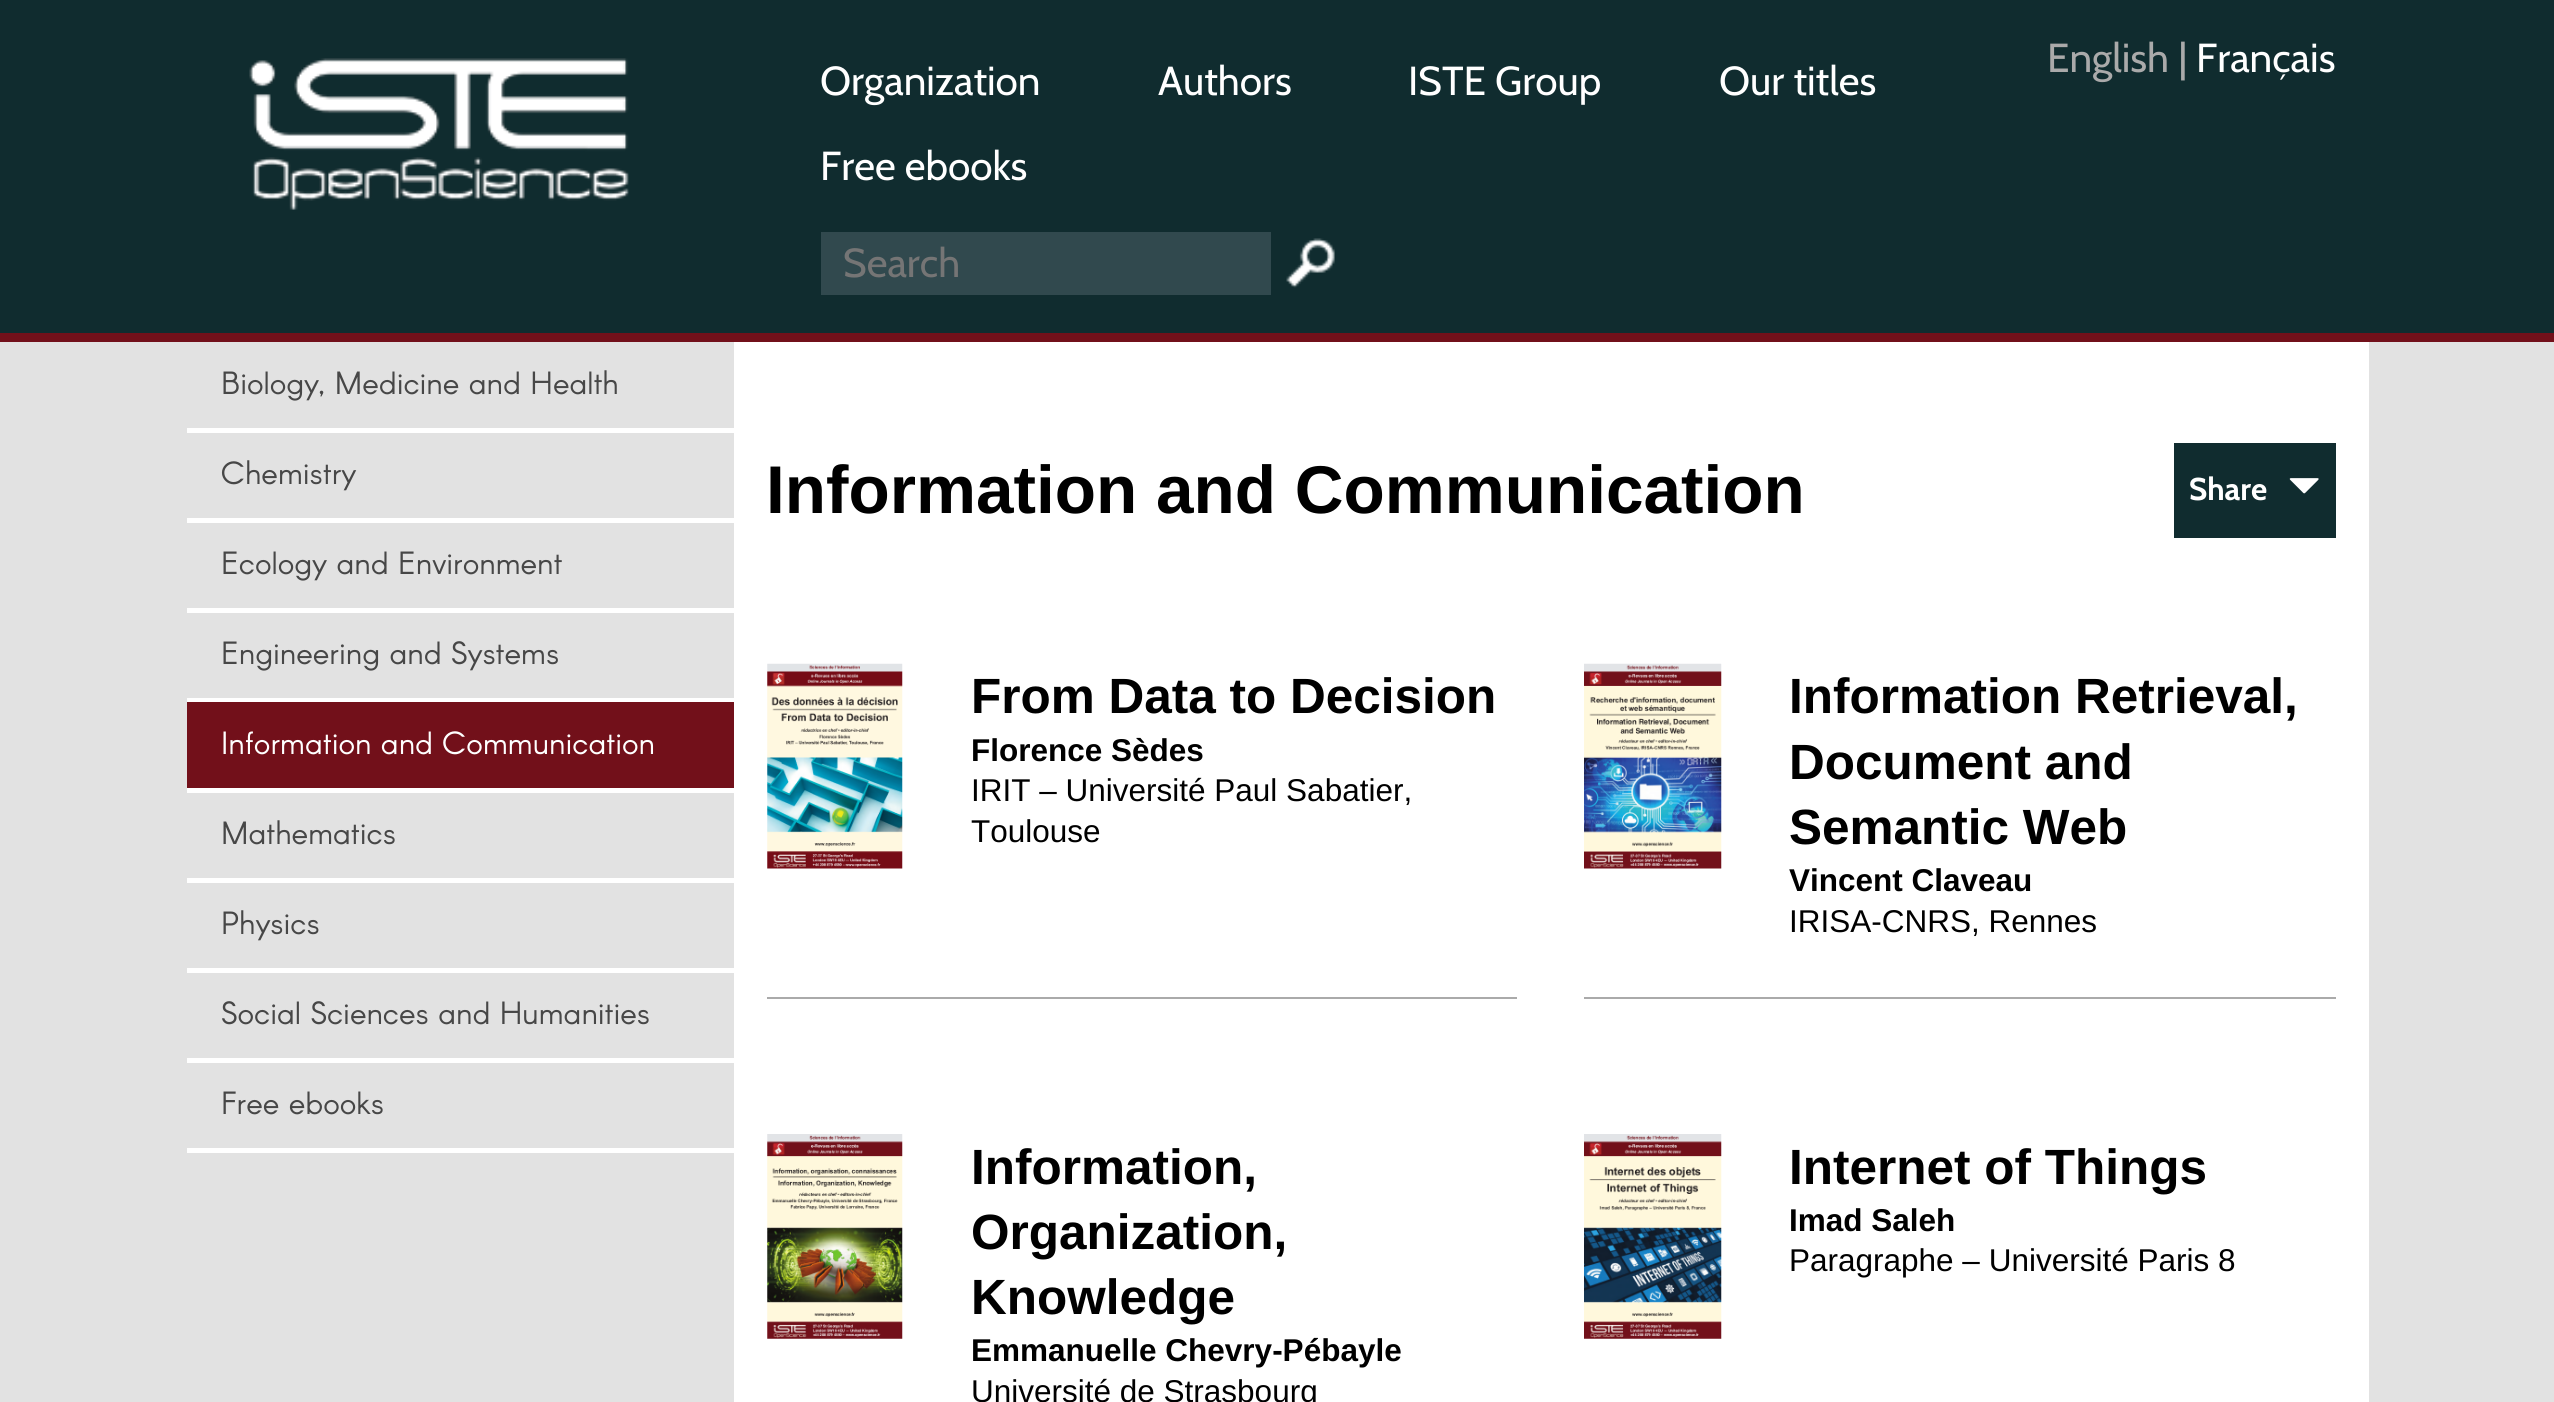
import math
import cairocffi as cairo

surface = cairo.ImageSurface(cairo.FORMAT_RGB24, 2554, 1402)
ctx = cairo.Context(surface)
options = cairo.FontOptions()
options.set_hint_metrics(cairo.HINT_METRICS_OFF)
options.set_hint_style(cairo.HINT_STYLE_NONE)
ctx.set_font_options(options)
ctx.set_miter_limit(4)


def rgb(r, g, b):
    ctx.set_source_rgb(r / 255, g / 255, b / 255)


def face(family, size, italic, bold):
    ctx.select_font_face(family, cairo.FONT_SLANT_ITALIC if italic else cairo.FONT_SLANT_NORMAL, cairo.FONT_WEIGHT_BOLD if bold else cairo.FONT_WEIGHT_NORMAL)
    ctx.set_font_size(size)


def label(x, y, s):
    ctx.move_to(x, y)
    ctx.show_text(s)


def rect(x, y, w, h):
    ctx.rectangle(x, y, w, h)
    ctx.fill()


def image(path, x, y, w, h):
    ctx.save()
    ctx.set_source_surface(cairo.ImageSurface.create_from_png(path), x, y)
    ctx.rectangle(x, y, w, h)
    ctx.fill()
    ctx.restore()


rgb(226, 226, 226)
ctx.paint()
rgb(16, 44, 47)
rect(0, 0, 2554, 333)
rgb(114, 16, 26)
rect(0, 333, 2554, 9)
image('image0.png', 249, 58, 380, 152)
face('Cabin', 40.5, 0, 0)
rgb(255, 255, 255)
label(820, 95, 'Organization')
label(1158, 95, 'Authors')
label(1408, 95, 'ISTE Group')
label(1719, 95, 'Our titles')
label(820, 180, 'Free ebooks')
rgb(49, 73, 78)
rect(821, 232, 450, 63)
rgb(117, 117, 117)
label(843, 277, 'Search')
image('image1.png', 1286, 238, 49, 50)
rgb(170, 170, 170)
label(2047, 72, 'English |')
rgb(255, 255, 255)
label(2196, 72, 'Français')
rect(187, 428, 547, 5)
face('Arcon', 31.5, 0, 0)
rgb(71, 71, 71)
label(221, 394, 'Biology, Medicine and Health')
rgb(255, 255, 255)
rect(187, 518, 547, 5)
rgb(71, 71, 71)
label(221, 484, 'Chemistry')
rgb(255, 255, 255)
rect(187, 608, 547, 5)
rgb(71, 71, 71)
label(221, 574, 'Ecology and Environment')
rgb(255, 255, 255)
rect(187, 698, 547, 4)
rgb(71, 71, 71)
label(221, 664, 'Engineering and Systems')
rgb(255, 255, 255)
rect(187, 788, 547, 5)
rgb(114, 16, 26)
rect(187, 702, 547, 86)
rgb(255, 255, 255)
label(221, 754, 'Information and Communication')
rect(187, 878, 547, 5)
rgb(71, 71, 71)
label(221, 844, 'Mathematics')
rgb(255, 255, 255)
rect(187, 968, 547, 5)
rgb(71, 71, 71)
label(221, 934, 'Physics')
rgb(255, 255, 255)
rect(187, 1058, 547, 5)
rgb(71, 71, 71)
label(221, 1024, 'Social Sciences and Humanities')
rgb(255, 255, 255)
rect(187, 1148, 547, 5)
rgb(71, 71, 71)
label(221, 1114, 'Free ebooks')
rgb(255, 255, 255)
rect(734, 342, 1635, 1060)
face('Liberation Sans', 67.5, 0, 1)
rgb(0, 0, 0)
label(766, 513, 'Information and Communication')
rgb(16, 44, 47)
rect(2174, 443, 162, 95)
face('Cabin', 31.5, 0, 1)
rgb(255, 255, 255)
label(2189, 500, 'Share')
image('image2.png', 2289, 478, 30, 16)
image('image3.png', 767, 663, 136, 206)
face('Liberation Sans', 49.5, 0, 1)
rgb(0, 0, 0)
label(971, 713, 'From Data to Decision')
face('Liberation Sans', 31.5, 0, 1)
label(971, 761, 'Florence Sèdes')
face('Liberation Sans', 31.5, 0, 0)
label(971, 801, 'IRIT – Université Paul Sabatier,')
label(971, 842, 'Toulouse')
rgb(170, 170, 170)
rect(767, 997, 750, 2)
image('image4.png', 1584, 663, 138, 206)
face('Liberation Sans', 49.5, 0, 1)
rgb(0, 0, 0)
label(1789, 713, 'Information Retrieval,')
label(1789, 779, 'Document and')
label(1789, 844, 'Semantic Web')
face('Liberation Sans', 31.5, 0, 1)
label(1789, 891, 'Vincent Claveau')
face('Liberation Sans', 31.5, 0, 0)
label(1789, 932, 'IRISA-CNRS, Rennes')
rgb(170, 170, 170)
rect(1584, 997, 752, 2)
image('image5.png', 767, 1134, 136, 205)
face('Liberation Sans', 49.5, 0, 1)
rgb(0, 0, 0)
label(971, 1184, 'Information,')
label(971, 1249, 'Organization,')
label(971, 1314, 'Knowledge')
face('Liberation Sans', 31.5, 0, 1)
label(971, 1361, 'Emmanuelle Chevry-Pébayle')
face('Liberation Sans', 31.5, 0, 0)
label(971, 1402, 'Université de Strasbourg')
image('image6.png', 1584, 1134, 138, 205)
face('Liberation Sans', 49.5, 0, 1)
label(1789, 1184, 'Internet of Things')
face('Liberation Sans', 31.5, 0, 1)
label(1789, 1231, 'Imad Saleh')
face('Liberation Sans', 31.5, 0, 0)
label(1789, 1271, 'Paragraphe – Université Paris 8')
surface.write_to_png('render.png')
